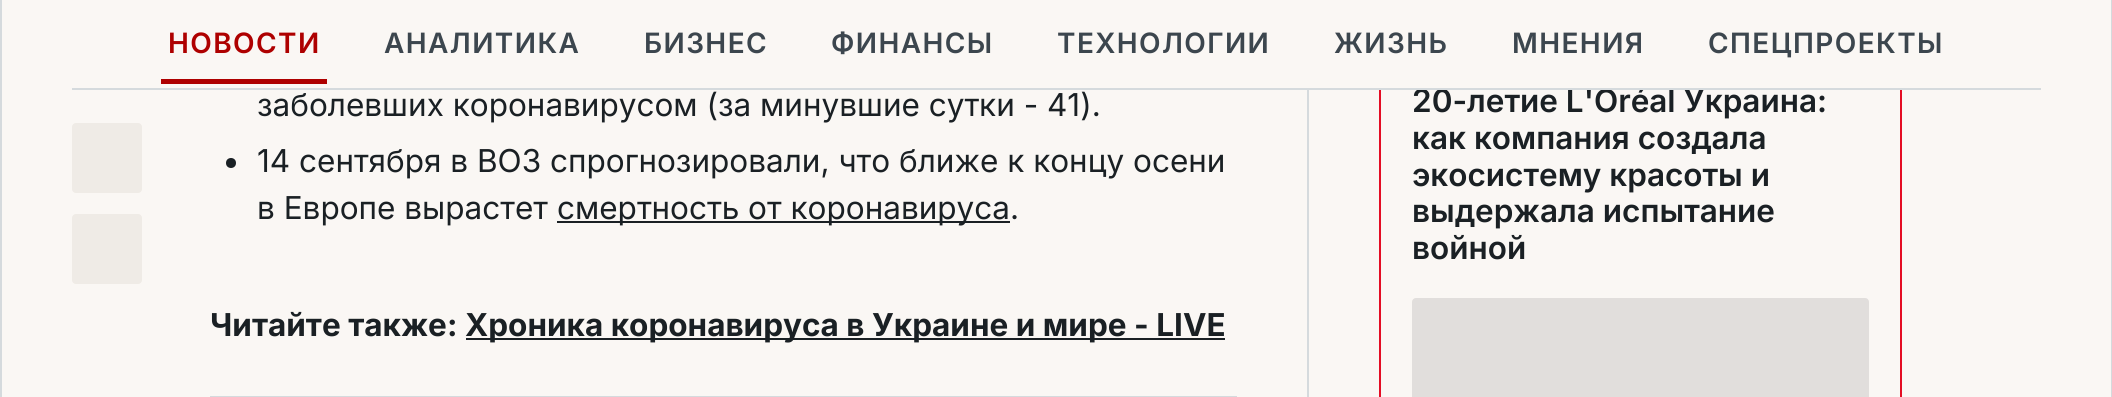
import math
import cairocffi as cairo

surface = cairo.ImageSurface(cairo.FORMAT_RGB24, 2112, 397)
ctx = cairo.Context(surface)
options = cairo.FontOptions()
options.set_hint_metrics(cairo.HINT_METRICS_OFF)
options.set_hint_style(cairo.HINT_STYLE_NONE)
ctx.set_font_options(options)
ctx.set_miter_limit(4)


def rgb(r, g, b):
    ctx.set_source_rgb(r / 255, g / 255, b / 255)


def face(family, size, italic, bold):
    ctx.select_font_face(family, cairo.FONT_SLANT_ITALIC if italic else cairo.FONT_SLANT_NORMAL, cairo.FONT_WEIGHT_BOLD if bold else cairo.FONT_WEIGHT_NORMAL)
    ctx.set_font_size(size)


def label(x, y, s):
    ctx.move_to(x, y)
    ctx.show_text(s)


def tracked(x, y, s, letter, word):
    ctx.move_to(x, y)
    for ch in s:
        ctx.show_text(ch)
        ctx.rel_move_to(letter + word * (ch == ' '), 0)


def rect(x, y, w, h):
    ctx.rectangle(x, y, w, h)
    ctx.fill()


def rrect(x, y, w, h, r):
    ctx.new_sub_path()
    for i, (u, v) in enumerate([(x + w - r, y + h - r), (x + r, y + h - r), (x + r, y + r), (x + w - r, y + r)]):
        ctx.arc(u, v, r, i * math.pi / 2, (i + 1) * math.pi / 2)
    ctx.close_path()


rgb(250, 247, 244)
ctx.paint()
rgb(213, 218, 221)
rect(2111, 0, 1, 397)
rect(0, 0, 2, 397)
ctx.rectangle(1380, -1, 521, 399)
rgb(228, 13, 36)
ctx.stroke()
face('Inter SemiBold', 31.5, 0, 0)
rgb(26, 32, 36)
label(1412, 112, '20-летие L\'Oréal Украина:')
rgb(250, 247, 244)
rect(1379, 0, 523, 88)
rgb(213, 218, 221)
rect(72, 88, 1969, 2)
face('Inter SemiBold', 28, 0, 0)
rgb(174, 0, 0)
tracked(168, 53, 'НОВОСТИ', 1.4, 0)
rect(161, 79, 166, 5)
rgb(60, 70, 78)
tracked(384, 53, 'АНАЛИТИКА', 1.4, 0)
tracked(644, 53, 'БИЗНЕС', 1.4, 0)
tracked(831, 53, 'ФИНАНСЫ', 1.4, 0)
tracked(1057, 53, 'ТЕХНОЛОГИИ', 1.4, 0)
tracked(1334, 53, 'ЖИЗНЬ', 1.4, 0)
tracked(1512, 53, 'МНЕНИЯ', 1.4, 0)
tracked(1708, 53, 'СПЕЦПРОЕКТЫ', 1.4, 0)
rgb(239, 235, 230)
rrect(72, 123, 70, 70, 4)
ctx.fill()
rrect(72, 214, 70, 70, 4)
ctx.fill()
face('Inter', 31.5, 0, 0)
rgb(26, 32, 36)
label(257, 116, 'заболевших коронавирусом (за минувшие сутки - 41).')
ctx.new_path()
ctx.arc(231, 163, 5, 0, 2 * math.pi)
ctx.fill()
label(257, 172, '14 сентября в ВОЗ спрогнозировали, что ближе к концу осени')
label(257, 219, 'в Европе вырастет')
rect(557, 221, 453, 2)
label(557, 219, 'смертность от коронавируса.')
face('Inter', 31.5, 0, 1)
label(210, 336, 'Читайте также:')
rect(466, 338, 759, 2)
label(465, 336, 'Хроника коронавируса в Украине и мире - LIVE')
ctx.rectangle(211, 397, 1025, 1)
rgb(213, 218, 221)
ctx.stroke()
rect(1307, 90, 2, 307)
face('Inter SemiBold', 31.5, 0, 0)
rgb(26, 32, 36)
label(1412, 149, 'как компания создала')
label(1412, 186, 'экосистему красоты и')
label(1412, 222, 'выдержала испытание')
label(1412, 259, 'войной')
rgb(225, 222, 220)
rrect(1412, 298, 457, 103, 4)
ctx.fill()
surface.write_to_png('render.png')
